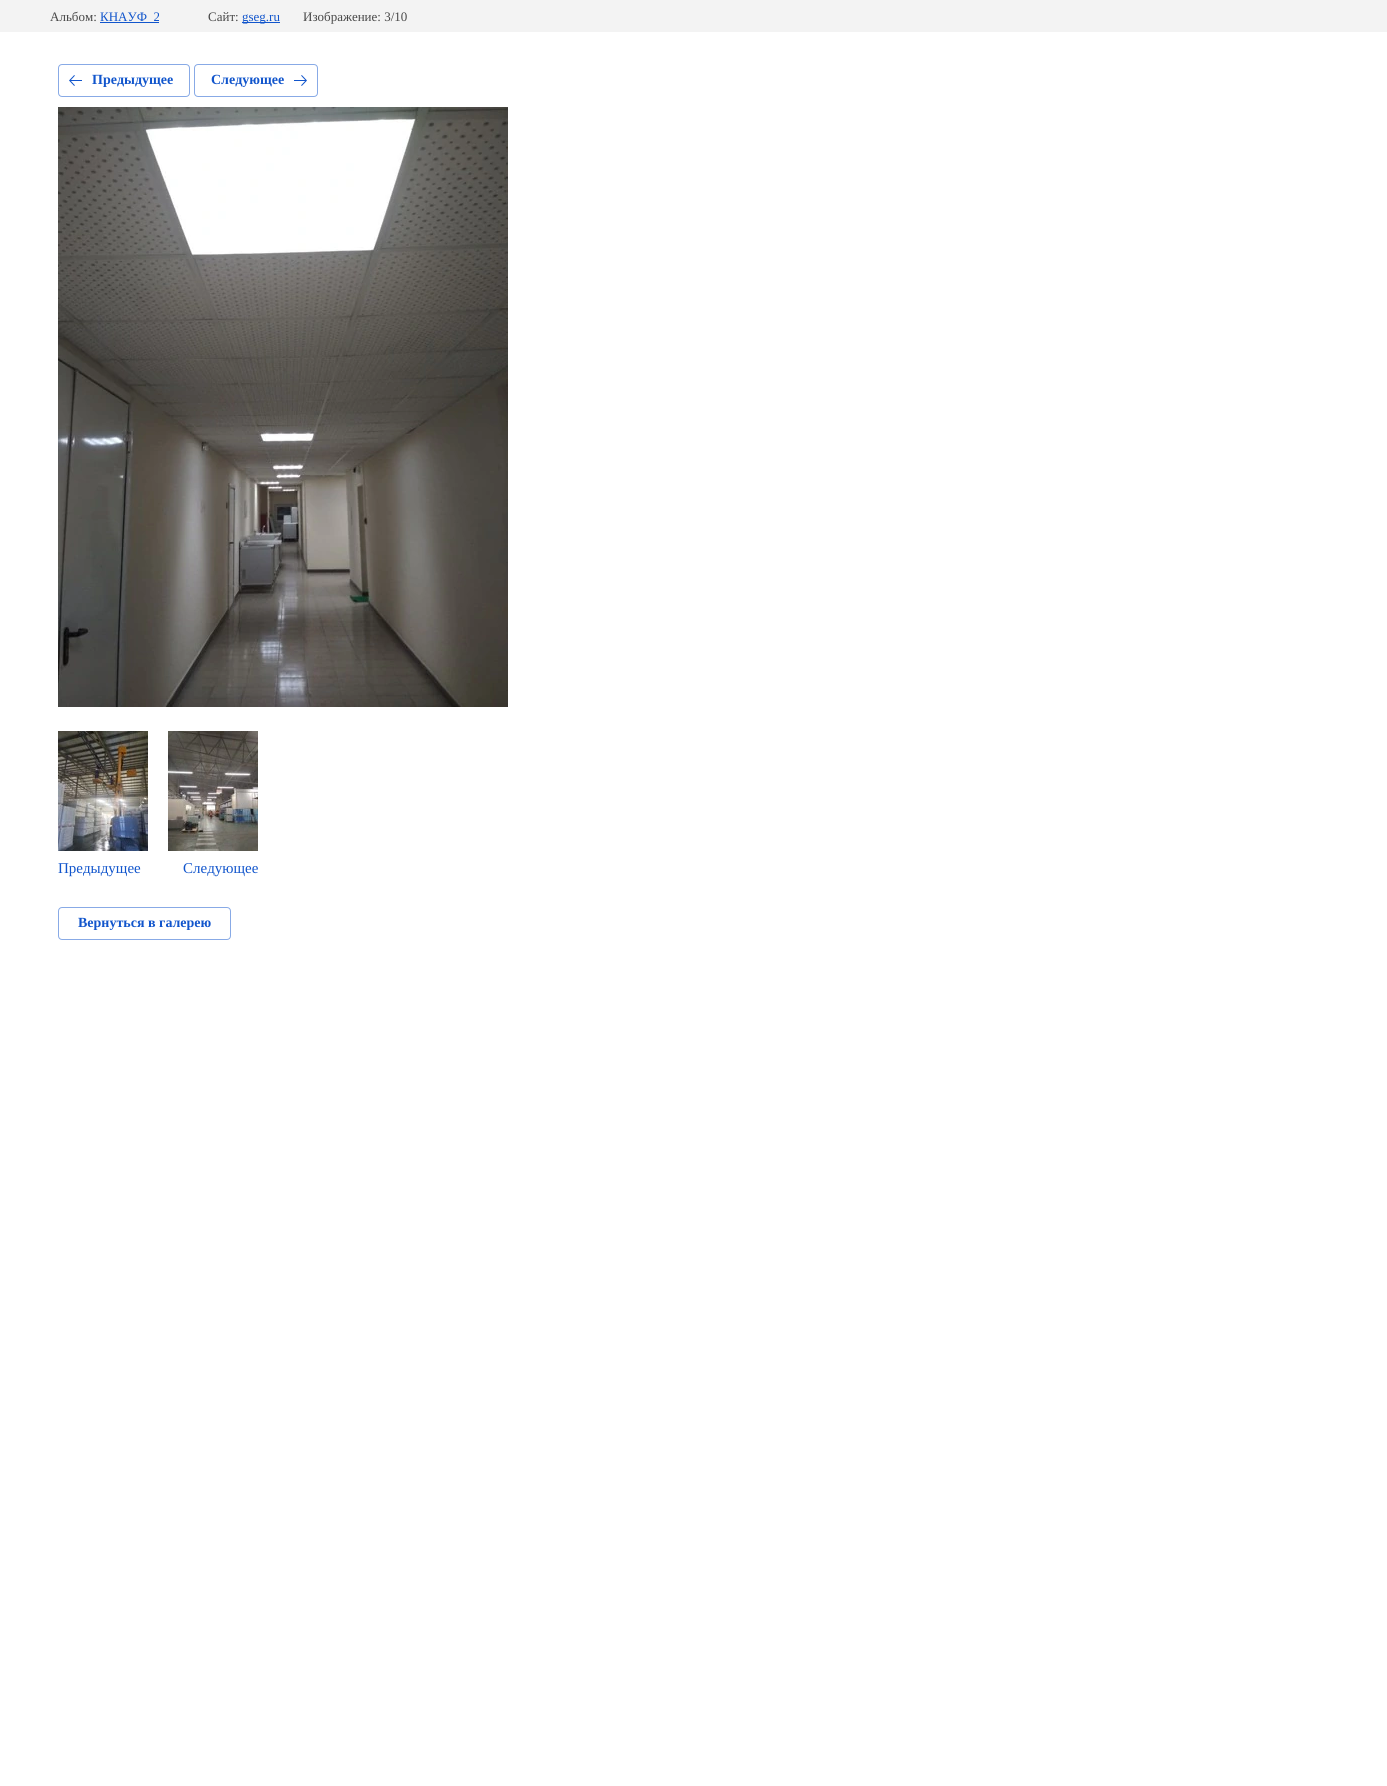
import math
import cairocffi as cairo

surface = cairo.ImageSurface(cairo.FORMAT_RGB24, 1387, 1786)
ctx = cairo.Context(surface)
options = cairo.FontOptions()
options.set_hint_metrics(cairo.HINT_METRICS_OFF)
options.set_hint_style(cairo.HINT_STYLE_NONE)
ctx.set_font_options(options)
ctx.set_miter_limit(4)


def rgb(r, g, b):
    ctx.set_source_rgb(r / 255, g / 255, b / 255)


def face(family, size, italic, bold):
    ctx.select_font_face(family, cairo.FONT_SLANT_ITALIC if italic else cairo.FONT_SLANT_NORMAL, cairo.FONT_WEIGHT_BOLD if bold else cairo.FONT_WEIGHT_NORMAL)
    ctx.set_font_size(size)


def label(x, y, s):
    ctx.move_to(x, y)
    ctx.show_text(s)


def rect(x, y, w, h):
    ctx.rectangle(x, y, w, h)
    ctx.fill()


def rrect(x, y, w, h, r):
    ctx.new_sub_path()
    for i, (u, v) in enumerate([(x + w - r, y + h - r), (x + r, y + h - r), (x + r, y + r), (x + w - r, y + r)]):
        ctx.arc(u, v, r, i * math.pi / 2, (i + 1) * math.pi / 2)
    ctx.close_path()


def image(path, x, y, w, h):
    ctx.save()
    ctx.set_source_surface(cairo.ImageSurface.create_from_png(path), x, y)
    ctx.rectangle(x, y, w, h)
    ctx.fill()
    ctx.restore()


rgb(255, 255, 255)
ctx.paint()
rgb(243, 243, 243)
rect(0, 0, 1387, 32)
face('Liberation Serif', 13, 0, 0)
rgb(72, 72, 72)
label(50, 21, 'Альбом:')
rgb(17, 85, 204)
rect(100, 22, 59, 1)
label(100, 21, 'КНАУФ_2')
rgb(72, 72, 72)
label(208, 21, 'Сайт:')
rgb(17, 85, 204)
rect(242, 22, 38, 1)
label(242, 21, 'gseg.ru')
rgb(72, 72, 72)
label(303, 21, 'Изображение: 3/10')
rrect(58.5, 64.5, 131, 32, 3.5)
rgb(136, 170, 230)
ctx.set_line_width(1)
ctx.stroke()
image('image0.png', 69, 75, 13, 11)
face('Liberation Serif', 14, 0, 1)
rgb(17, 85, 204)
label(92, 84, 'Предыдущее')
rrect(194.5, 64.5, 123, 32, 3.5)
rgb(136, 170, 230)
ctx.stroke()
rgb(17, 85, 204)
label(211, 84, 'Следующее')
image('image1.png', 294, 75, 13, 11)
image('image2.png', 58, 107, 450, 600)
image('image3.png', 58, 731, 90, 120)
face('Liberation Serif', 15, 0, 0)
label(58, 873, 'Предыдущее')
image('image4.png', 168, 731, 90, 120)
label(183, 873, 'Следующее')
rrect(58.5, 907.5, 172, 32, 3.5)
rgb(136, 170, 230)
ctx.stroke()
face('Liberation Serif', 14, 0, 1)
rgb(17, 85, 204)
label(78, 927, 'Вернуться в галерею')
surface.write_to_png('render.png')
